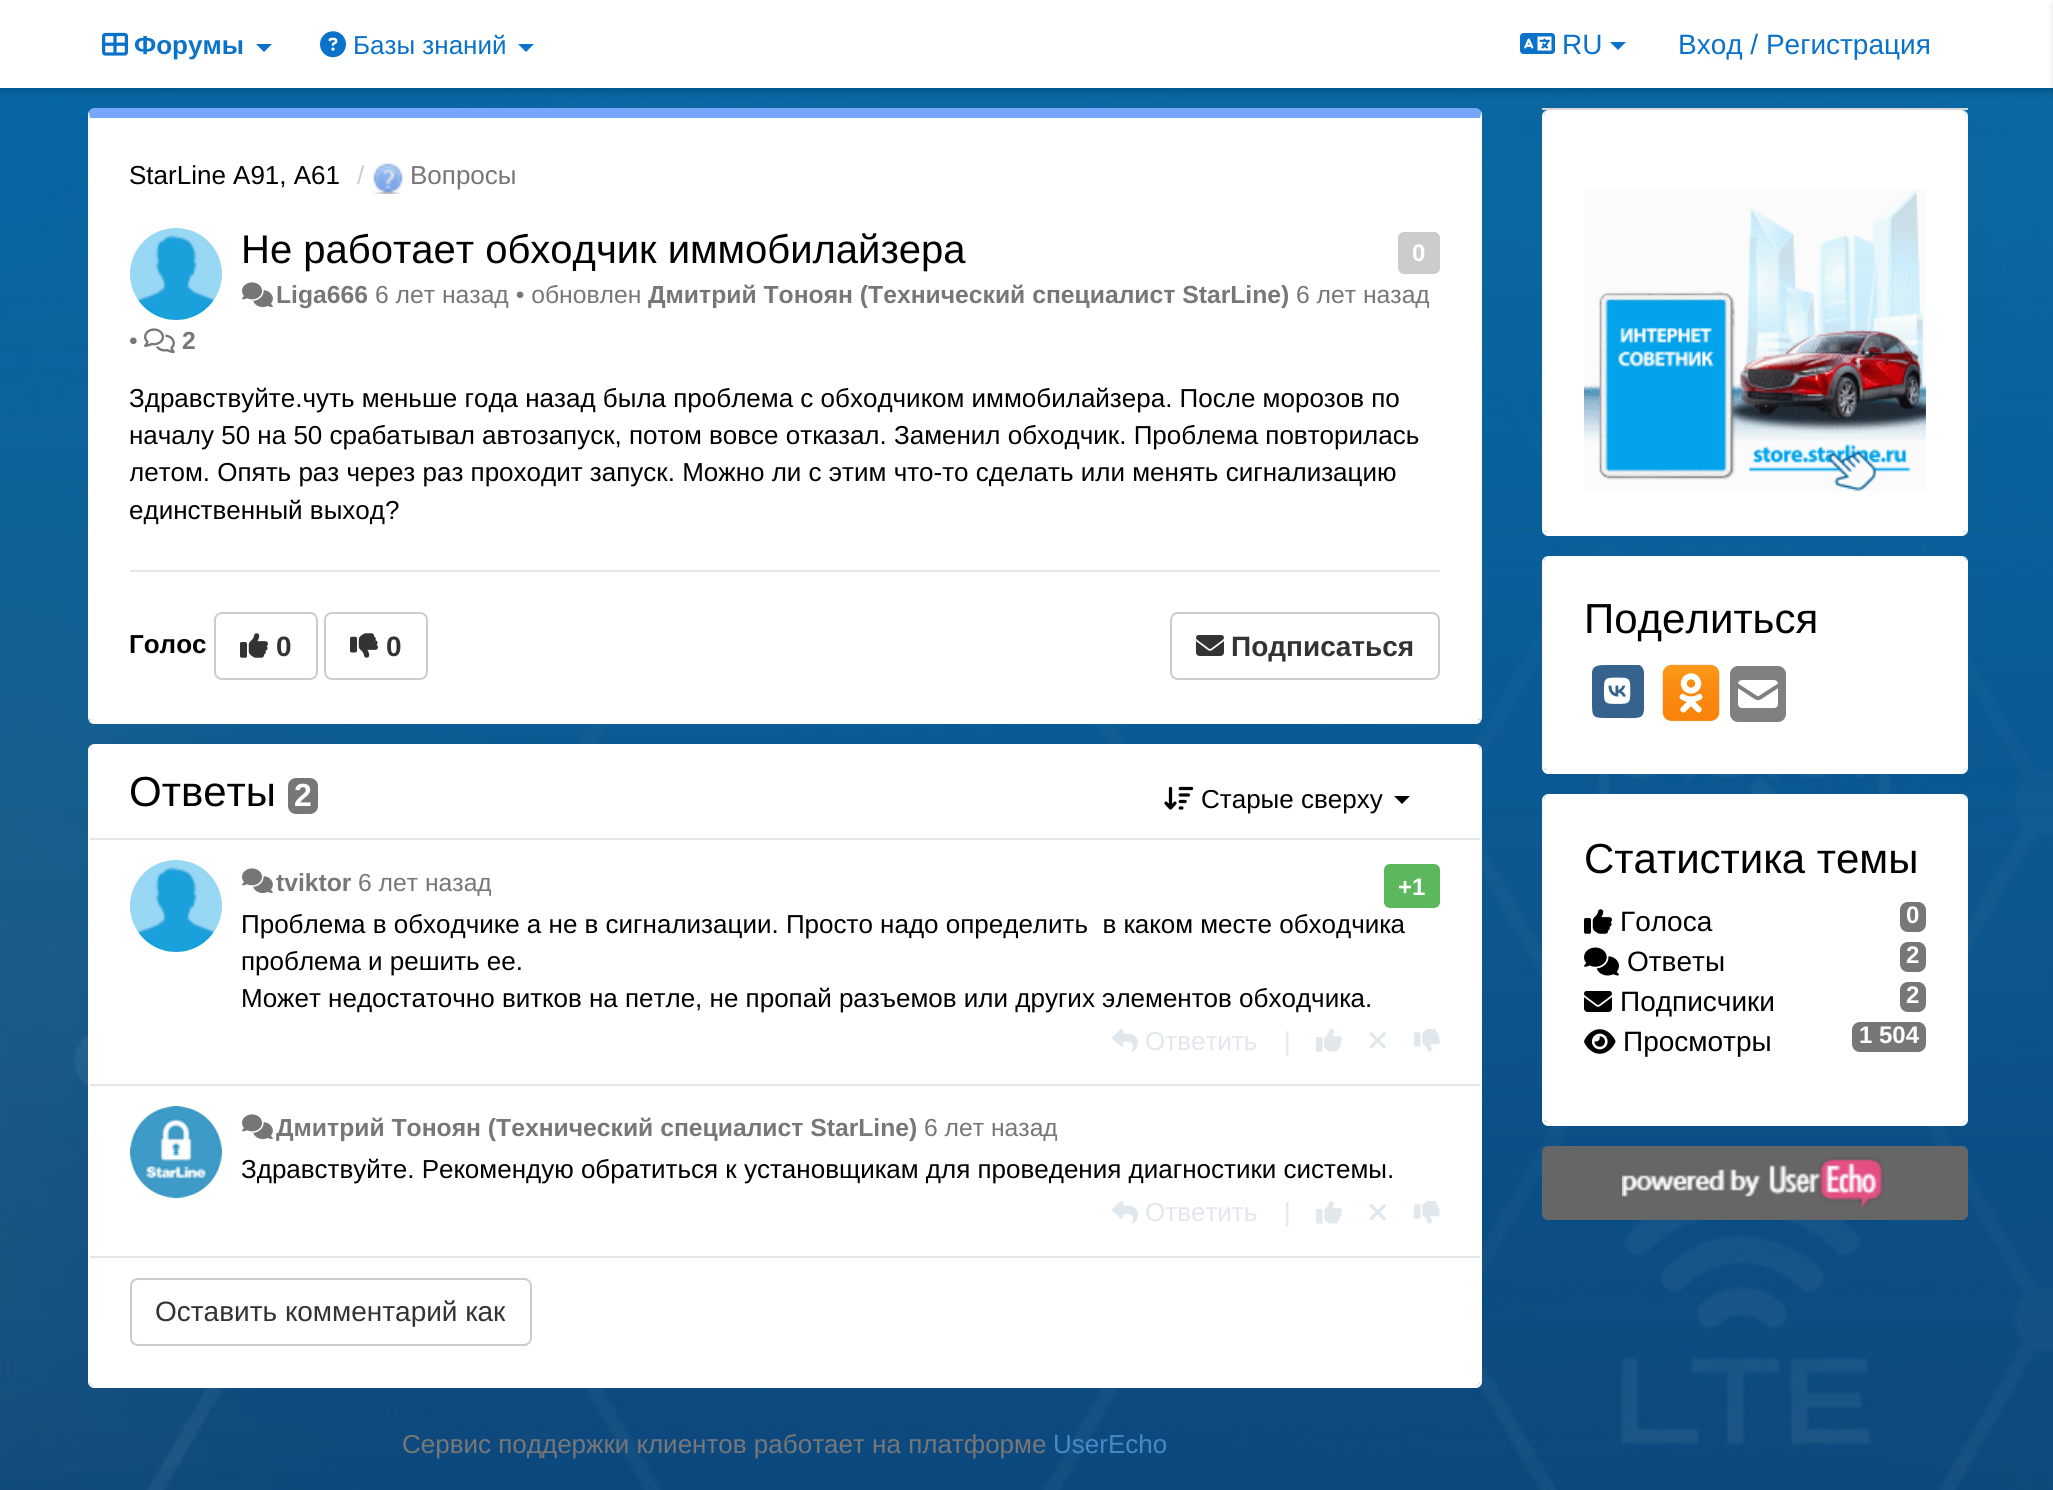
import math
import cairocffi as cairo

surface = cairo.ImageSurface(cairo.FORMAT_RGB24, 2053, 1490)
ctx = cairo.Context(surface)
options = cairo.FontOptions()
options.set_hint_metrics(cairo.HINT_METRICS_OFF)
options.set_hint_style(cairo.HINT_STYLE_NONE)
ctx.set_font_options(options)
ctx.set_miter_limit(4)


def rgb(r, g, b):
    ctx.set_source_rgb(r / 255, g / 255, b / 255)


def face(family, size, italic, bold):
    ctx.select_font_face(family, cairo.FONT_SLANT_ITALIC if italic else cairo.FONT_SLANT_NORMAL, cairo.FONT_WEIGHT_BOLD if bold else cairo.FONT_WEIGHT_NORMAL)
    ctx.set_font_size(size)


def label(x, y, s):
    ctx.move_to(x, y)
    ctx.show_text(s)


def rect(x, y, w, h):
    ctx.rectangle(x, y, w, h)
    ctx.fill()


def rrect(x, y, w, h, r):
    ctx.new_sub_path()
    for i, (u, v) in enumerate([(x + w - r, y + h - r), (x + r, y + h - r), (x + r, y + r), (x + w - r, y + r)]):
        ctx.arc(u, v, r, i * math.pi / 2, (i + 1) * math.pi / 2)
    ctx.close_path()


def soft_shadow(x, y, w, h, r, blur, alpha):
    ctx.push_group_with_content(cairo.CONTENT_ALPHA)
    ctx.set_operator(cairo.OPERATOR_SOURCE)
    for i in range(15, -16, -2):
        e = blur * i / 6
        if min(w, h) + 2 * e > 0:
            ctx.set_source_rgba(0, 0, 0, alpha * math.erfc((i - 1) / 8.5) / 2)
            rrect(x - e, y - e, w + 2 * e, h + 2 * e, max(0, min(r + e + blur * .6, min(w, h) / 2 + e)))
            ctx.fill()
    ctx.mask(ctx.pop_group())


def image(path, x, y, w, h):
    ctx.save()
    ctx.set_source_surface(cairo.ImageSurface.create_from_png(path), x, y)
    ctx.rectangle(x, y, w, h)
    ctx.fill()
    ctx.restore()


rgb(255, 255, 255)
ctx.paint()
image('image0.png', 0, 88, 2053, 1402)
rgb(0, 0, 0)
soft_shadow(0, 4, 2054, 88, 0, 4, 0.15)
rgb(255, 255, 255)
rect(0, 0, 2053, 88)
image('image1.png', 102, 32, 26, 24)
face('Liberation Sans', 26, 0, 1)
rgb(11, 114, 202)
label(134, 54, 'Форумы')
ctx.new_path()
ctx.move_to(256, 44)
ctx.line_to(272, 44)
ctx.line_to(264, 52)
ctx.close_path()
ctx.fill()
image('image2.png', 320, 31, 26, 27)
face('Liberation Sans', 26, 0, 0)
label(353, 54, 'Базы знаний')
ctx.new_path()
ctx.move_to(518, 44)
ctx.line_to(534, 44)
ctx.line_to(526, 52)
ctx.close_path()
ctx.fill()
image('image3.png', 1520, 33, 35, 21)
face('Liberation Sans', 28, 0, 0)
label(1562, 54, 'RU')
ctx.new_path()
ctx.move_to(1610, 42)
ctx.line_to(1626, 42)
ctx.line_to(1618, 50)
ctx.close_path()
ctx.fill()
label(1678, 54, 'Вход / Регистрация')
rgb(0, 0, 0)
soft_shadow(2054, 4, 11, 88, 0, 4, 0.15)
rgb(255, 255, 255)
ctx.new_path()
ctx.move_to(94, 118)
ctx.line_to(1480, 118)
ctx.line_to(1480, 718)
ctx.curve_to(1480, 719, 1478, 720, 1476, 720)
ctx.line_to(94, 720)
ctx.curve_to(92, 720, 90, 719, 90, 718)
ctx.line_to(90, 118)
ctx.close_path()
ctx.fill()
rgb(118, 167, 250)
ctx.new_path()
ctx.move_to(94, 108)
ctx.curve_to(92, 108, 90, 110, 89, 111)
ctx.line_to(90, 118)
ctx.line_to(1480, 118)
ctx.line_to(1481, 111)
ctx.curve_to(1480, 110, 1478, 108, 1476, 108)
ctx.close_path()
ctx.fill()
rgb(255, 255, 255)
ctx.new_path()
ctx.move_to(1482, 718)
ctx.line_to(1482, 114)
ctx.line_to(1481, 111)
ctx.line_to(1480, 118)
ctx.line_to(1480, 718)
ctx.line_to(1479, 719)
ctx.line_to(1481, 721)
ctx.close_path()
ctx.fill()
ctx.new_path()
ctx.move_to(94, 724)
ctx.line_to(1476, 724)
ctx.curve_to(1478, 724, 1480, 723, 1481, 721)
ctx.line_to(1479, 719)
ctx.line_to(1476, 720)
ctx.line_to(94, 720)
ctx.line_to(91, 719)
ctx.line_to(89, 721)
ctx.curve_to(90, 723, 92, 724, 94, 724)
ctx.close_path()
ctx.fill()
ctx.new_path()
ctx.move_to(88, 114)
ctx.line_to(88, 718)
ctx.line_to(89, 721)
ctx.line_to(91, 719)
ctx.line_to(90, 718)
ctx.line_to(90, 118)
ctx.line_to(89, 111)
ctx.close_path()
ctx.fill()
face('Liberation Sans', 26, 0, 0)
rgb(0, 0, 0)
label(129, 184, 'StarLine A91, A61')
rgb(204, 204, 204)
label(357, 184, '/')
image('image4.png', 373, 163, 30, 31)
rgb(119, 119, 119)
label(410, 184, 'Вопросы')
image('image5.png', 130, 228, 92, 92)
face('Liberation Sans', 40, 0, 0)
rgb(0, 0, 0)
label(241, 263, 'Не работает обходчик иммобилайзера')
rgb(204, 204, 204)
rrect(1398, 232, 42, 42, 6)
ctx.fill()
face('Liberation Sans', 24, 0, 1)
rgb(255, 255, 255)
label(1412, 261, '0')
image('image6.png', 242, 282, 31, 26)
face('Liberation Sans', 24.7, 0, 1)
rgb(119, 119, 119)
label(276, 303, 'Liga666')
face('Liberation Sans', 24.7, 0, 0)
label(375, 303, '6 лет назад • обновлен')
face('Liberation Sans', 24.7, 0, 1)
label(648, 303, 'Дмитрий Тонoян (Технический специалист StarLine)')
face('Liberation Sans', 24.7, 0, 0)
label(1296, 303, '6 лет назад')
label(129, 349, '•')
image('image7.png', 144, 328, 31, 26)
face('Liberation Sans', 24.7, 0, 1)
label(182, 349, '2')
face('Liberation Sans', 26, 0, 0)
rgb(0, 0, 0)
label(129, 407, 'Здравствуйте.чуть меньше года назад была проблема с обходчиком иммобилайзера. После морозов по')
label(129, 444, 'началу 50 на 50 срабатывал автозапуск, потом вовсе отказал. Заменил обходчик. Проблема повторилась')
ctx.save()
ctx.rectangle(130, 382, 1310, 148)
ctx.clip()
label(129, 481, 'летом. Опять раз через раз проходит запуск. Можно ли с этим что-то сделать или менять сигнализацию')
ctx.restore()
label(129, 519, 'единственный выход?')
rgb(229, 229, 229)
rect(130, 570, 1310, 2)
face('Liberation Sans', 26, 0, 1)
rgb(0, 0, 0)
label(129, 653, 'Голос')
rrect(215, 613, 102, 66, 7)
rgb(204, 204, 204)
ctx.stroke()
image('image8.png', 240, 633, 28, 25)
face('Liberation Sans', 28, 0, 1)
rgb(51, 51, 51)
label(276, 656, '0')
rrect(325, 613, 102, 66, 7)
rgb(204, 204, 204)
ctx.stroke()
image('image9.png', 350, 633, 28, 25)
rgb(51, 51, 51)
label(386, 656, '0')
rrect(1171, 613, 268, 66, 7)
rgb(204, 204, 204)
ctx.stroke()
image('image10.png', 1196, 635, 28, 21)
rgb(51, 51, 51)
label(1231, 656, 'Подписаться')
rgb(255, 255, 255)
ctx.new_path()
ctx.move_to(94, 744)
ctx.line_to(1476, 744)
ctx.curve_to(1478, 744, 1480, 747, 1480, 750)
ctx.line_to(1480, 1382)
ctx.curve_to(1480, 1384, 1478, 1386, 1476, 1386)
ctx.line_to(94, 1386)
ctx.curve_to(92, 1386, 90, 1384, 90, 1382)
ctx.line_to(90, 750)
ctx.curve_to(90, 747, 92, 744, 94, 744)
ctx.close_path()
ctx.fill()
ctx.set_fill_rule(cairo.FILL_RULE_EVEN_ODD)
ctx.new_path()
ctx.move_to(94, 744)
ctx.line_to(1476, 744)
ctx.curve_to(1479, 744, 1482, 747, 1482, 750)
ctx.line_to(1482, 1382)
ctx.curve_to(1482, 1385, 1479, 1388, 1476, 1388)
ctx.line_to(94, 1388)
ctx.curve_to(91, 1388, 88, 1385, 88, 1382)
ctx.line_to(88, 750)
ctx.curve_to(88, 747, 91, 744, 94, 744)
ctx.close_path()
ctx.move_to(94, 744)
ctx.line_to(1476, 744)
ctx.curve_to(1478, 744, 1480, 747, 1480, 750)
ctx.line_to(1480, 1382)
ctx.curve_to(1480, 1384, 1478, 1386, 1476, 1386)
ctx.line_to(94, 1386)
ctx.curve_to(92, 1386, 90, 1384, 90, 1382)
ctx.line_to(90, 750)
ctx.curve_to(90, 747, 92, 744, 94, 744)
ctx.close_path()
ctx.fill()
face('Liberation Sans', 42, 0, 0)
rgb(0, 0, 0)
label(129, 806, 'Ответы')
rgb(119, 119, 119)
rrect(288, 778, 30, 36, 8)
ctx.fill()
face('Liberation Sans', 32, 0, 1)
rgb(255, 255, 255)
label(294, 806, '2')
image('image11.png', 1164, 786, 30, 24)
face('Liberation Sans', 26, 0, 0)
rgb(0, 0, 0)
label(1201, 808, 'Старые сверху')
ctx.set_fill_rule(cairo.FILL_RULE_WINDING)
ctx.new_path()
ctx.move_to(1394, 796)
ctx.line_to(1410, 796)
ctx.line_to(1402, 804)
ctx.close_path()
ctx.fill()
rgb(225, 232, 237)
rect(90, 838, 1390, 2)
rect(90, 1084, 1390, 2)
image('image12.png', 130, 860, 92, 92)
image('image6.png', 242, 868, 31, 26)
face('Liberation Sans', 24.7, 0, 1)
rgb(119, 119, 119)
label(276, 891, 'tviktor')
face('Liberation Sans', 24.7, 0, 0)
label(358, 891, '6 лет назад')
rgb(92, 184, 92)
rrect(1384, 864, 56, 44, 6)
ctx.fill()
face('Liberation Sans', 24, 0, 1)
rgb(255, 255, 255)
label(1398, 895, '+1')
face('Liberation Sans', 26, 0, 0)
rgb(0, 0, 0)
label(241, 933, 'Проблема в обходчике а не в сигнализации. Просто надо определить  в каком месте обходчика')
label(241, 970, 'проблема и решить ее.')
label(241, 1007, 'Может недостаточно витков на петле, не пропай разъемов или других элементов обходчика.')
image('image13.png', 1112, 1029, 26, 23)
rgb(225, 232, 237)
label(1145, 1050, 'Ответить')
label(1284, 1050, '|')
image('image14.png', 1316, 1029, 26, 23)
image('image15.png', 1369, 1032, 17, 17)
image('image16.png', 1414, 1029, 26, 23)
rect(90, 1256, 1390, 2)
image('image17.png', 130, 1106, 92, 92)
image('image6.png', 242, 1114, 31, 26)
face('Liberation Sans', 24.7, 0, 1)
rgb(119, 119, 119)
label(276, 1136, 'Дмитрий Тонoян (Технический специалист StarLine)')
face('Liberation Sans', 24.7, 0, 0)
label(924, 1136, '6 лет назад')
face('Liberation Sans', 26, 0, 0)
rgb(0, 0, 0)
label(241, 1178, 'Здравствуйте. Рекомендую обратиться к установщикам для проведения диагностики системы.')
image('image13.png', 1112, 1201, 26, 23)
rgb(225, 232, 237)
label(1145, 1221, 'Ответить')
label(1284, 1221, '|')
image('image14.png', 1316, 1201, 26, 23)
image('image15.png', 1369, 1204, 17, 17)
image('image16.png', 1414, 1201, 26, 23)
rrect(131, 1279, 400, 66, 7)
rgb(204, 204, 204)
ctx.stroke()
face('Liberation Sans', 28, 0, 0)
rgb(51, 51, 51)
label(155, 1321, 'Оставить комментарий как')
face('Liberation Sans', 26, 0, 0)
rgb(119, 119, 119)
label(402, 1453, 'Сервис поддержки клиентов работает на платформе')
rgb(66, 139, 202)
label(1053, 1453, 'UserEcho')
rgb(216, 216, 216)
rect(1542, 108, 426, 2)
rgb(255, 255, 255)
ctx.new_path()
ctx.move_to(1548, 110)
ctx.line_to(1962, 110)
ctx.curve_to(1964, 110, 1966, 113, 1966, 116)
ctx.line_to(1966, 530)
ctx.curve_to(1966, 531, 1964, 532, 1962, 532)
ctx.line_to(1548, 532)
ctx.curve_to(1546, 532, 1544, 531, 1544, 530)
ctx.line_to(1544, 116)
ctx.curve_to(1544, 113, 1546, 110, 1548, 110)
ctx.close_path()
ctx.fill()
ctx.set_fill_rule(cairo.FILL_RULE_EVEN_ODD)
ctx.new_path()
ctx.move_to(1548, 110)
ctx.line_to(1962, 110)
ctx.curve_to(1965, 110, 1968, 113, 1968, 116)
ctx.line_to(1968, 530)
ctx.curve_to(1968, 533, 1965, 536, 1962, 536)
ctx.line_to(1548, 536)
ctx.curve_to(1545, 536, 1542, 533, 1542, 530)
ctx.line_to(1542, 116)
ctx.curve_to(1542, 113, 1545, 110, 1548, 110)
ctx.close_path()
ctx.move_to(1548, 110)
ctx.line_to(1962, 110)
ctx.curve_to(1964, 110, 1966, 113, 1966, 116)
ctx.line_to(1966, 530)
ctx.curve_to(1966, 531, 1964, 532, 1962, 532)
ctx.line_to(1548, 532)
ctx.curve_to(1546, 532, 1544, 531, 1544, 530)
ctx.line_to(1544, 116)
ctx.curve_to(1544, 113, 1546, 110, 1548, 110)
ctx.close_path()
ctx.fill()
image('image18.png', 1584, 189, 342, 302)
ctx.set_fill_rule(cairo.FILL_RULE_WINDING)
ctx.new_path()
ctx.move_to(1548, 556)
ctx.line_to(1962, 556)
ctx.curve_to(1964, 556, 1966, 559, 1966, 562)
ctx.line_to(1966, 768)
ctx.curve_to(1966, 769, 1964, 770, 1962, 770)
ctx.line_to(1548, 770)
ctx.curve_to(1546, 770, 1544, 769, 1544, 768)
ctx.line_to(1544, 562)
ctx.curve_to(1544, 559, 1546, 556, 1548, 556)
ctx.close_path()
ctx.fill()
ctx.set_fill_rule(cairo.FILL_RULE_EVEN_ODD)
ctx.new_path()
ctx.move_to(1548, 556)
ctx.line_to(1962, 556)
ctx.curve_to(1965, 556, 1968, 559, 1968, 562)
ctx.line_to(1968, 768)
ctx.curve_to(1968, 771, 1965, 774, 1962, 774)
ctx.line_to(1548, 774)
ctx.curve_to(1545, 774, 1542, 771, 1542, 768)
ctx.line_to(1542, 562)
ctx.curve_to(1542, 559, 1545, 556, 1548, 556)
ctx.close_path()
ctx.move_to(1548, 556)
ctx.line_to(1962, 556)
ctx.curve_to(1964, 556, 1966, 559, 1966, 562)
ctx.line_to(1966, 768)
ctx.curve_to(1966, 769, 1964, 770, 1962, 770)
ctx.line_to(1548, 770)
ctx.curve_to(1546, 770, 1544, 769, 1544, 768)
ctx.line_to(1544, 562)
ctx.curve_to(1544, 559, 1546, 556, 1548, 556)
ctx.close_path()
ctx.fill()
face('Liberation Sans', 42, 0, 0)
rgb(0, 0, 0)
label(1584, 633, 'Поделиться')
rgb(54, 99, 142)
ctx.set_fill_rule(cairo.FILL_RULE_WINDING)
ctx.new_path()
ctx.move_to(1592, 673)
ctx.curve_to(1592, 665, 1600, 665, 1606, 665)
ctx.line_to(1639, 665)
ctx.curve_to(1645, 667, 1644, 674, 1644, 679)
ctx.line_to(1644, 692)
ctx.curve_to(1644, 721, 1647, 718, 1618, 718)
ctx.line_to(1606, 718)
ctx.curve_to(1593, 718, 1592, 717, 1592, 704)
ctx.close_path()
ctx.fill()
image('image19.png', 1604, 677, 27, 27)
image('image20.png', 1662, 664, 58, 58)
image('image21.png', 1730, 666, 56, 56)
rgb(255, 255, 255)
ctx.new_path()
ctx.move_to(1548, 794)
ctx.line_to(1962, 794)
ctx.curve_to(1964, 794, 1966, 797, 1966, 800)
ctx.line_to(1966, 1120)
ctx.curve_to(1966, 1121, 1964, 1122, 1962, 1122)
ctx.line_to(1548, 1122)
ctx.curve_to(1546, 1122, 1544, 1121, 1544, 1120)
ctx.line_to(1544, 800)
ctx.curve_to(1544, 797, 1546, 794, 1548, 794)
ctx.close_path()
ctx.fill()
ctx.set_fill_rule(cairo.FILL_RULE_EVEN_ODD)
ctx.new_path()
ctx.move_to(1548, 794)
ctx.line_to(1962, 794)
ctx.curve_to(1965, 794, 1968, 797, 1968, 800)
ctx.line_to(1968, 1120)
ctx.curve_to(1968, 1123, 1965, 1126, 1962, 1126)
ctx.line_to(1548, 1126)
ctx.curve_to(1545, 1126, 1542, 1123, 1542, 1120)
ctx.line_to(1542, 800)
ctx.curve_to(1542, 797, 1545, 794, 1548, 794)
ctx.close_path()
ctx.move_to(1548, 794)
ctx.line_to(1962, 794)
ctx.curve_to(1964, 794, 1966, 797, 1966, 800)
ctx.line_to(1966, 1120)
ctx.curve_to(1966, 1121, 1964, 1122, 1962, 1122)
ctx.line_to(1548, 1122)
ctx.curve_to(1546, 1122, 1544, 1121, 1544, 1120)
ctx.line_to(1544, 800)
ctx.curve_to(1544, 797, 1546, 794, 1548, 794)
ctx.close_path()
ctx.fill()
rgb(0, 0, 0)
label(1584, 873, 'Статистика темы')
image('image22.png', 1584, 909, 28, 25)
face('Liberation Sans', 28, 0, 0)
label(1620, 931, 'Голоса')
rgb(119, 119, 119)
rrect(1900, 902, 26, 30, 8)
ctx.fill()
face('Liberation Sans', 24, 0, 1)
rgb(255, 255, 255)
label(1906, 923, '0')
image('image23.png', 1584, 947, 35, 29)
face('Liberation Sans', 28, 0, 0)
rgb(0, 0, 0)
label(1627, 971, 'Ответы')
rgb(119, 119, 119)
rrect(1900, 942, 26, 30, 8)
ctx.fill()
face('Liberation Sans', 24, 0, 1)
rgb(255, 255, 255)
label(1906, 963, '2')
image('image24.png', 1584, 991, 28, 21)
face('Liberation Sans', 28, 0, 0)
rgb(0, 0, 0)
label(1620, 1011, 'Подписчики')
rgb(119, 119, 119)
rrect(1900, 982, 26, 30, 8)
ctx.fill()
face('Liberation Sans', 24, 0, 1)
rgb(255, 255, 255)
label(1906, 1003, '2')
image('image25.png', 1584, 1029, 32, 25)
face('Liberation Sans', 28, 0, 0)
rgb(0, 0, 0)
label(1623, 1051, 'Просмотры')
rgb(119, 119, 119)
rrect(1852, 1022, 74, 30, 8)
ctx.fill()
face('Liberation Sans', 24, 0, 1)
rgb(255, 255, 255)
label(1859, 1043, '1 504')
rgb(102, 102, 102)
rrect(1542, 1146, 426, 74, 6)
ctx.fill()
image('image26.png', 1622, 1157, 262, 52)
surface.write_to_png('render.png')
